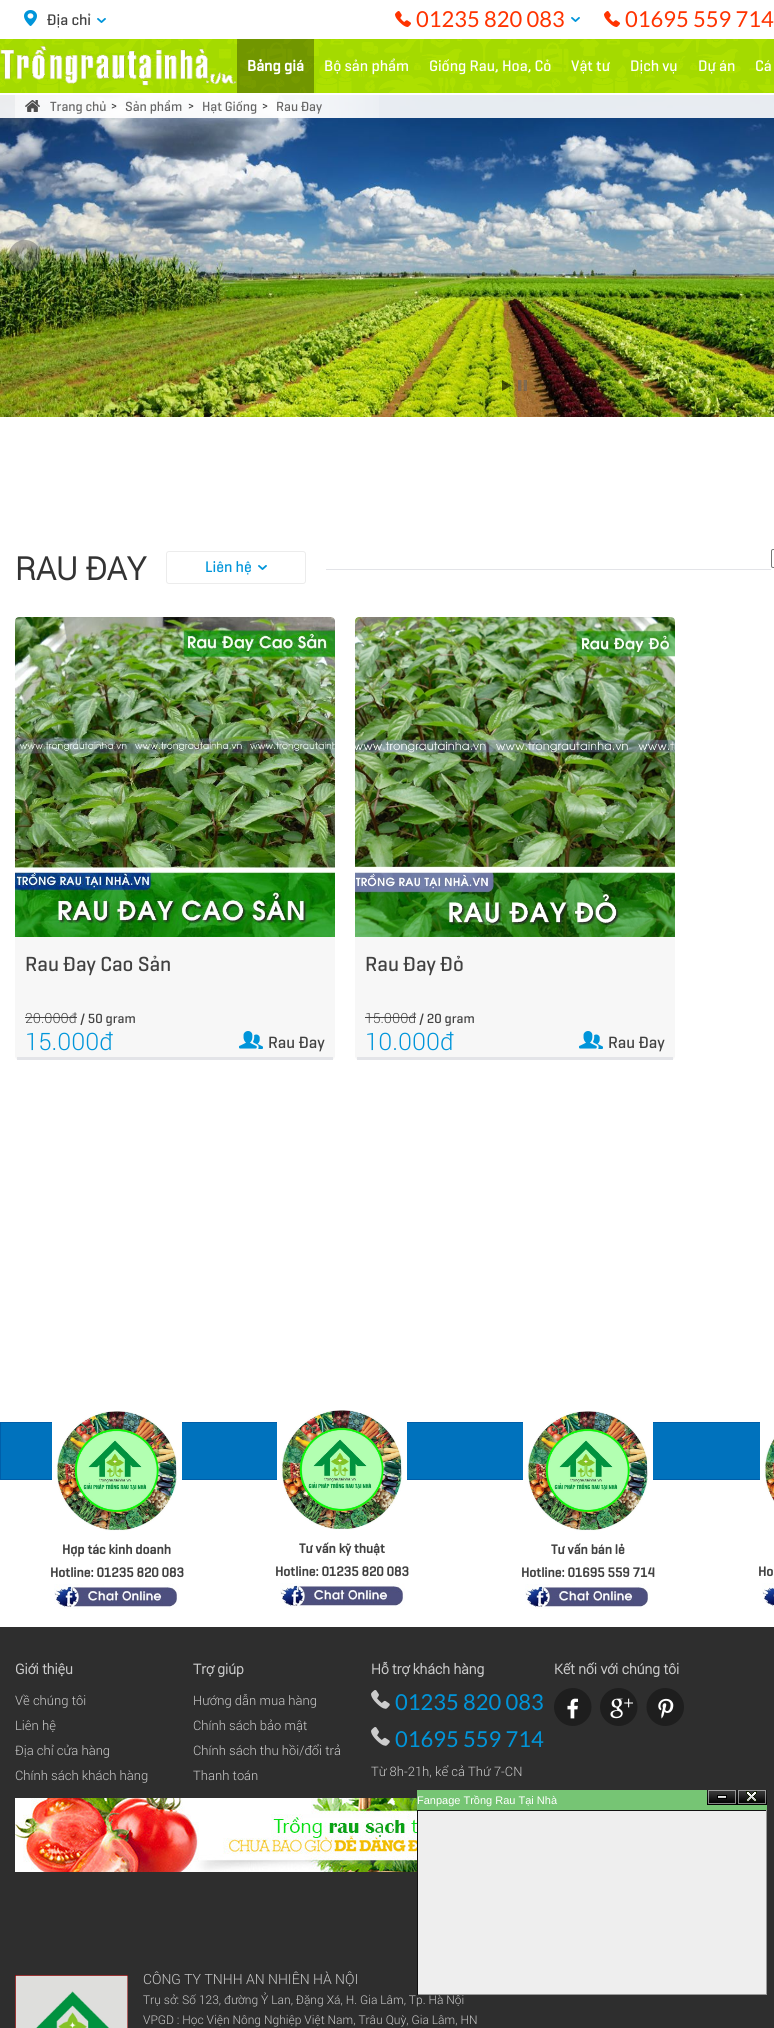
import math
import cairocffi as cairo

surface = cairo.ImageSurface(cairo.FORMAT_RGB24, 774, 2028)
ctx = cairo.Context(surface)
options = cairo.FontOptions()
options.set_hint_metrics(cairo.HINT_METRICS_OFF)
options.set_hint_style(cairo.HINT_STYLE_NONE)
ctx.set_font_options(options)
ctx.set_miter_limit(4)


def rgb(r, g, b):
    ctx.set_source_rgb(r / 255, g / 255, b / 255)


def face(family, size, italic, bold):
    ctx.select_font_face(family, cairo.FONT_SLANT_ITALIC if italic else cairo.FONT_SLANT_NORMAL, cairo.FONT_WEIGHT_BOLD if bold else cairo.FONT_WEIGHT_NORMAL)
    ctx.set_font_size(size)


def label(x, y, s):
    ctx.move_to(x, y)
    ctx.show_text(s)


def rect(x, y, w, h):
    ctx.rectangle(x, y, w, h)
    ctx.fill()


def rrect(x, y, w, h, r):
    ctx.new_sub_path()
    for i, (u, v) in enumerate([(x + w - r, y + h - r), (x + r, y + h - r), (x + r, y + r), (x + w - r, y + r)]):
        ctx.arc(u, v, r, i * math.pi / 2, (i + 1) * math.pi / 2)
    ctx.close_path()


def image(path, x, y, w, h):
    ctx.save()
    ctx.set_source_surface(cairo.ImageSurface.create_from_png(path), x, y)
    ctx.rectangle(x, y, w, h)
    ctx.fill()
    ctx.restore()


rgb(255, 255, 255)
ctx.paint()
image('image0.png', 24, 10, 13, 16)
face('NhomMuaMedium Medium', 15, 0, 0)
rgb(65, 65, 65)
label(47, 25, 'Địa chỉ')
image('image1.png', 97, 18, 9, 5)
image('image2.png', 395, 11, 16, 16)
face('Lato', 22, 0, 0)
rgb(255, 51, 0)
label(416, 27, '01235 820 083')
image('image1.png', 571, 17, 9, 5)
image('image2.png', 604, 11, 16, 16)
label(625, 27, '01695 559 714')
image('image3.png', 0, 39, 774, 54)
image('image4.png', 0, 46, 237, 40)
ctx.set_source_rgba(0, 0, 0, 0.31)
rect(237, 39, 77, 54)
face('NhomMuaMedium', 15, 0, 1)
rgb(255, 255, 255)
label(247, 71, 'Bảng giá')
face('NhomMuaMedium Medium', 15, 0, 0)
label(324, 71, 'Bộ sản phẩm')
label(429, 71, 'Giống Rau, Hoa, Cỏ')
label(571, 71, 'Vật tư')
label(630, 71, 'Dịch vụ')
label(698, 71, 'Dự án')
label(755, 71, 'Cá')
image('image5.png', 0, 95, 774, 322)
image('image6.png', 9, 240, 32, 31)
image('image7.png', 502, 380, 10, 11)
image('image8.png', 518, 380, 9, 11)
ctx.set_source_rgba(1, 1, 1, 0.9)
rect(0, 95, 774, 23)
image('image9.png', 15, 95, 364, 23)
image('image10.png', 25, 100, 15, 12)
face('NhomMuaMedium Medium', 13, 0, 0)
rgb(102, 102, 102)
label(50, 111, 'Trang chủ')
face('NhomMuaMedium Medium', 11, 0, 0)
rgb(65, 65, 65)
label(111, 110, '>')
face('NhomMuaMedium Medium', 13, 0, 0)
rgb(102, 102, 102)
label(125, 111, 'Sản phẩm')
face('NhomMuaMedium Medium', 11, 0, 0)
rgb(65, 65, 65)
label(188, 110, '>')
face('NhomMuaMedium Medium', 13, 0, 0)
rgb(102, 102, 102)
label(202, 111, 'Hạt Giống')
face('NhomMuaMedium Medium', 11, 0, 0)
rgb(65, 65, 65)
label(262, 110, '>')
face('NhomMuaMedium Medium', 13, 0, 0)
rgb(102, 102, 102)
label(276, 111, 'Rau Đay')
rgb(227, 228, 232)
rect(326, 569, 448, 1)
face('Roboto', 32, 0, 1)
rgb(51, 51, 51)
label(15, 580, 'RAU ĐAY')
rrect(166.5, 551.5, 139, 32, 2.5)
rgb(236, 236, 236)
ctx.set_line_width(1)
ctx.stroke()
face('NhomMuaMedium Medium', 15, 0, 0)
rgb(0, 149, 218)
label(205, 572, 'Liên hệ')
image('image1.png', 258, 565, 9, 5)
rgb(255, 255, 255)
rect(771, 569, 3, 1)
rrect(771.5, 549.5, 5, 18, 1.5)
rgb(118, 118, 118)
ctx.stroke()
rgb(247, 247, 247)
rrect(15, 617, 320, 443, 4)
ctx.fill()
rgb(227, 228, 232)
rect(17, 1057, 316, 3)
image('image11.png', 15, 617, 320, 320)
face('NhomMuaMedium Medium', 20, 0, 0)
rgb(65, 65, 65)
label(25, 971, 'Rau Đay Cao Sản')
face('Roboto Light', 14, 0, 0)
label(25, 1023, '20.000đ')
rect(25, 1017, 52, 1)
face('NhomMuaMedium Medium', 13, 0, 0)
label(80, 1023, '/ 50 gram')
face('Roboto Light', 24, 0, 0)
rgb(0, 149, 218)
label(25, 1050, '15.000đ')
image('image12.png', 239, 1031, 24, 18)
face('NhomMuaMedium Medium', 16, 0, 0)
rgb(65, 65, 65)
label(268, 1048, 'Rau Đay')
rgb(247, 247, 247)
rrect(355, 617, 320, 443, 4)
ctx.fill()
rgb(227, 228, 232)
rect(357, 1057, 316, 3)
image('image13.png', 355, 617, 320, 320)
face('NhomMuaMedium Medium', 20, 0, 0)
rgb(65, 65, 65)
label(365, 971, 'Rau Đay Đỏ')
face('Roboto Light', 14, 0, 0)
label(365, 1023, '15.000đ')
rect(365, 1017, 51, 1)
face('NhomMuaMedium Medium', 13, 0, 0)
label(419, 1023, '/ 20 gram')
face('Roboto Light', 24, 0, 0)
rgb(0, 149, 218)
label(365, 1050, '10.000đ')
image('image12.png', 579, 1031, 24, 18)
face('NhomMuaMedium Medium', 16, 0, 0)
rgb(65, 65, 65)
label(608, 1048, 'Rau Đay')
rgb(0, 114, 189)
rect(1, 1423, 759, 56)
ctx.rectangle(0.5, 1422.5, 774, 57)
rgb(0, 94, 169)
ctx.stroke()
image('image14.png', 52, 1411, 130, 120)
face('NhomMuaMedium', 13, 0, 1)
rgb(65, 65, 65)
label(62, 1554, 'Hợp tác kinh doanh')
label(50, 1577, 'Hotline: 01235 820 083')
image('image15.png', 54, 1584, 125, 25)
image('image16.png', 277, 1410, 130, 120)
label(299, 1553, 'Tư vấn kỹ thuật')
label(275, 1576, 'Hotline: 01235 820 083')
image('image17.png', 280, 1583, 125, 25)
image('image18.png', 523, 1411, 130, 120)
label(551, 1554, 'Tư vấn bán lẻ')
label(521, 1577, 'Hotline: 01695 559 714')
image('image17.png', 525, 1584, 125, 25)
image('image19.png', 760, 1422, 14, 80)
label(758, 1576, 'Ho')
image('image20.png', 762, 1583, 12, 24)
rgb(46, 46, 46)
rect(0, 1627, 774, 401)
face('Roboto', 14, 0, 1)
rgb(204, 204, 204)
label(15, 1674, 'Giới thiệu')
face('Roboto Light', 13, 0, 0)
label(15, 1705, 'Về chúng tôi')
label(15, 1730, 'Liên hệ')
label(15, 1755, 'Địa chỉ cửa hàng')
label(15, 1780, 'Chính sách khách hàng')
face('Roboto', 14, 0, 1)
label(193, 1674, 'Trợ giúp')
face('Roboto Light', 13, 0, 0)
label(193, 1705, 'Hướng dẫn mua hàng')
label(193, 1730, 'Chính sách bảo mật')
label(193, 1755, 'Chính sách thu hồi/đổi trả')
label(193, 1780, 'Thanh toán')
face('Roboto', 14, 0, 1)
label(371, 1674, 'Hỗ trợ khách hàng')
image('image21.png', 371, 1690, 19, 19)
face('Lato', 22, 0, 0)
rgb(0, 149, 218)
label(395, 1710, '01235 820 083')
image('image21.png', 371, 1727, 19, 19)
label(395, 1747, '01695 559 714')
face('Roboto Light', 13, 0, 0)
rgb(204, 204, 204)
label(371, 1776, 'Từ 8h-21h, kể cả Thứ 7-CN')
face('Roboto', 14, 0, 1)
label(554, 1674, 'Kết nối với chúng tôi')
image('image22.png', 554, 1688, 38, 38)
image('image23.png', 600, 1688, 38, 38)
image('image24.png', 646, 1688, 38, 38)
image('image25.png', 15, 1798, 402, 74)
image('image26.png', 15, 1975, 113, 53)
face('Roboto Light', 14, 0, 0)
label(143, 1984, 'CÔNG TY TNHH AN NHIÊN HÀ NỘI')
face('Roboto Light', 12, 0, 0)
label(143, 2004, 'Trụ sở: Số 123, đường Ỷ Lan, Đặng Xá, H. Gia Lâm, Tp. Hà Nội')
label(143, 2024, 'VPGD : Học Viện Nông Nghiệp Việt Nam, Trâu Quỳ, Gia Lâm, HN')
rgb(118, 197, 116)
rect(417, 1790, 350, 20)
face('Liberation Sans', 11, 0, 0)
rgb(255, 255, 255)
label(417, 1804, 'Fanpage Trồng Rau Tại Nhà')
image('image27.png', 707, 1790, 30, 15)
image('image28.png', 737, 1790, 30, 15)
rgb(238, 238, 238)
rect(418, 1811, 348, 183)
rgb(17, 17, 17)
rect(417, 1810, 350, 1)
rgb(153, 153, 153)
rect(766, 1810, 1, 185)
rect(417, 1994, 350, 1)
rgb(17, 17, 17)
rect(417, 1810, 1, 185)
surface.write_to_png('render.png')
